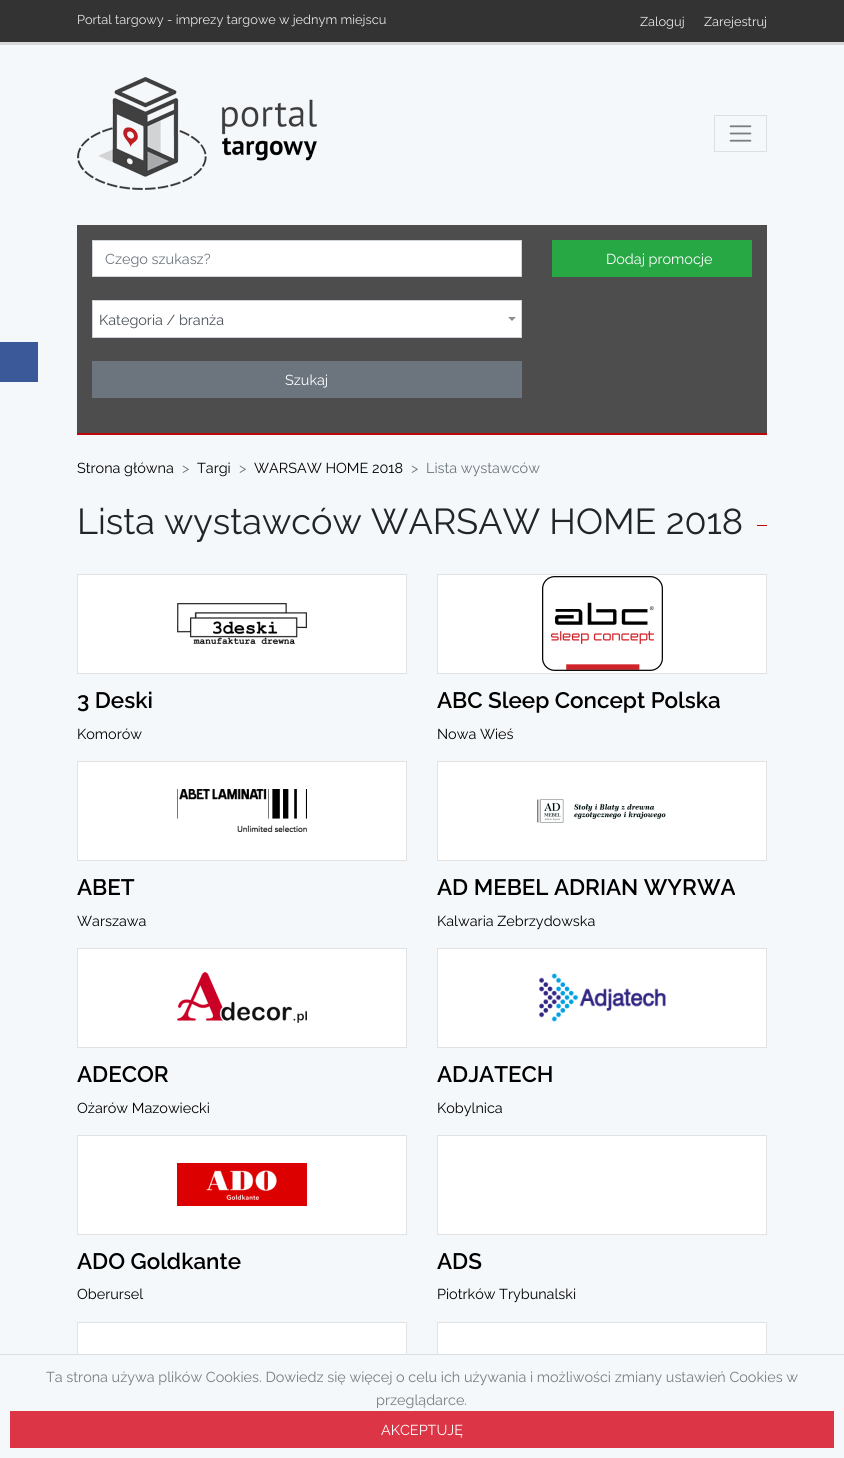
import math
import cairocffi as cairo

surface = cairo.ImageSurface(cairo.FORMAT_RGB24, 844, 1458)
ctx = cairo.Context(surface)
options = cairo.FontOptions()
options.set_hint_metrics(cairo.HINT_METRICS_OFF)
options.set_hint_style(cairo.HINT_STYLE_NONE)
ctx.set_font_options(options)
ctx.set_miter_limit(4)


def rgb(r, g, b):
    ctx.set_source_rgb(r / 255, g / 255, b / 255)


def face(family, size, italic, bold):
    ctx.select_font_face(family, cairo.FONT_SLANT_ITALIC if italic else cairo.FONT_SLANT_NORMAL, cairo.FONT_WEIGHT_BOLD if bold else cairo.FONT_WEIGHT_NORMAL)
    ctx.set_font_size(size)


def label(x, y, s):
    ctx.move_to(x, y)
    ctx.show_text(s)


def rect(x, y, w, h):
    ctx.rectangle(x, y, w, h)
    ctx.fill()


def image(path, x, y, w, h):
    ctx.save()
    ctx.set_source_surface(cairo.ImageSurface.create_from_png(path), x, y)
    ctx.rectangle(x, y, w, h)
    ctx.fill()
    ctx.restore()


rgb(245, 248, 250)
ctx.paint()
rgb(214, 216, 217)
rect(0, 42, 844, 3)
rgb(51, 51, 51)
rect(0, 0, 844, 42)
face('Raleway', 12.8, 0, 0)
rgb(232, 232, 232)
label(77, 24, 'Portal targowy - imprezy targowe w jednym miejscu')
label(640, 26, 'Zaloguj')
label(704, 26, 'Zarejestruj')
rgb(59, 89, 152)
rect(0, 342, 38, 40)
image('image0.png', 77, 77, 240, 113)
ctx.rectangle(714.5, 115.5, 52, 36)
rgb(221, 223, 225)
ctx.set_line_width(1)
ctx.stroke()
image('image1.png', 729, 125, 23, 17)
rgb(189, 6, 6)
rect(77, 433, 690, 2)
rgb(77, 77, 77)
rect(77, 225, 690, 208)
rgb(255, 255, 255)
ctx.rectangle(92.5, 240.5, 429, 36)
ctx.fill_preserve()
rgb(206, 212, 218)
ctx.stroke()
ctx.save()
ctx.rectangle(105, 250, 404, 17)
ctx.clip()
face('Raleway', 14.4, 0, 0)
rgb(108, 117, 125)
label(105, 264, 'Czego szukasz?')
ctx.restore()
rgb(255, 255, 255)
ctx.rectangle(92.5, 300.5, 429, 37)
ctx.fill_preserve()
rgb(206, 212, 218)
ctx.stroke()
face('Raleway', 14.4, 0, 0)
rgb(73, 80, 87)
label(99, 325, 'Kategoria / branża')
rgb(134, 142, 150)
ctx.new_path()
ctx.move_to(508, 317)
ctx.line_to(516, 317)
ctx.line_to(512, 321)
ctx.close_path()
ctx.fill()
rgb(108, 117, 125)
rect(92, 361, 430, 37)
rgb(255, 255, 255)
label(285, 385, 'Szukaj')
rgb(40, 167, 69)
rect(552, 240, 200, 37)
rgb(255, 255, 255)
label(606, 264, 'Dodaj promocje')
rgb(0, 0, 0)
label(77, 473, 'Strona główna')
rgb(108, 117, 125)
label(182, 473, '>')
rgb(0, 0, 0)
label(197, 473, 'Targi')
rgb(108, 117, 125)
label(239, 473, '>')
rgb(0, 0, 0)
label(254, 473, 'WARSAW HOME 2018')
rgb(108, 117, 125)
label(411, 473, '>')
label(426, 473, 'Lista wystawców')
face('Raleway', 36, 0, 0)
rgb(33, 37, 41)
label(77, 534, 'Lista wystawców WARSAW HOME 2018')
rgb(189, 6, 6)
rect(757, 525, 10, 1)
rgb(255, 255, 255)
ctx.rectangle(77.5, 574.5, 329, 99)
ctx.fill_preserve()
rgb(226, 226, 226)
ctx.stroke()
image('image2.png', 177, 603, 130, 41)
face('Raleway SemiBold', 22.4, 0, 0)
rgb(0, 0, 0)
label(77, 708, '3 Deski')
face('Raleway', 14.4, 0, 0)
label(77, 739, 'Komorów')
rgb(255, 255, 255)
ctx.rectangle(437.5, 574.5, 329, 99)
ctx.fill_preserve()
rgb(226, 226, 226)
ctx.stroke()
image('image3.png', 542, 576, 121, 95)
face('Raleway SemiBold', 22.4, 0, 0)
rgb(0, 0, 0)
label(437, 708, 'ABC Sleep Concept Polska')
face('Raleway', 14.4, 0, 0)
label(437, 739, 'Nowa Wieś')
rgb(255, 255, 255)
ctx.rectangle(77.5, 761.5, 329, 99)
ctx.fill_preserve()
rgb(226, 226, 226)
ctx.stroke()
image('image4.png', 177, 789, 130, 43)
face('Raleway SemiBold', 22.4, 0, 0)
rgb(0, 0, 0)
label(77, 895, 'ABET')
face('Raleway', 14.4, 0, 0)
label(77, 926, 'Warszawa')
rgb(255, 255, 255)
ctx.rectangle(437.5, 761.5, 329, 99)
ctx.fill_preserve()
rgb(226, 226, 226)
ctx.stroke()
image('image5.png', 537, 799, 129, 24)
face('Raleway SemiBold', 22.4, 0, 0)
rgb(0, 0, 0)
label(437, 895, 'AD MEBEL ADRIAN WYRWA')
face('Raleway', 14.4, 0, 0)
label(437, 926, 'Kalwaria Zebrzydowska')
rgb(255, 255, 255)
ctx.rectangle(77.5, 948.5, 329, 99)
ctx.fill_preserve()
rgb(226, 226, 226)
ctx.stroke()
image('image6.png', 177, 972, 130, 51)
face('Raleway SemiBold', 22.4, 0, 0)
rgb(0, 0, 0)
label(77, 1082, 'ADECOR')
face('Raleway', 14.4, 0, 0)
label(77, 1113, 'Ożarów Mazowiecki')
rgb(255, 255, 255)
ctx.rectangle(437.5, 948.5, 329, 99)
ctx.fill_preserve()
rgb(226, 226, 226)
ctx.stroke()
image('image7.png', 539, 973, 127, 49)
face('Raleway SemiBold', 22.4, 0, 0)
rgb(0, 0, 0)
label(437, 1082, 'ADJATECH')
face('Raleway', 14.4, 0, 0)
label(437, 1113, 'Kobylnica')
rgb(255, 255, 255)
ctx.rectangle(77.5, 1135.5, 329, 99)
ctx.fill_preserve()
rgb(226, 226, 226)
ctx.stroke()
image('image8.png', 177, 1163, 130, 43)
face('Raleway SemiBold', 22.4, 0, 0)
rgb(0, 0, 0)
label(77, 1269, 'ADO Goldkante')
face('Raleway', 14.4, 0, 0)
label(77, 1299, 'Oberursel')
rgb(255, 255, 255)
ctx.rectangle(437.5, 1135.5, 329, 99)
ctx.fill_preserve()
rgb(226, 226, 226)
ctx.stroke()
face('Raleway SemiBold', 22.4, 0, 0)
rgb(0, 0, 0)
label(437, 1269, 'ADS')
face('Raleway', 14.4, 0, 0)
label(437, 1299, 'Piotrków Trybunalski')
rgb(255, 255, 255)
rect(78, 1323, 328, 31)
ctx.rectangle(77.5, 1322.5, 329, 99)
rgb(226, 226, 226)
ctx.stroke()
rgb(255, 255, 255)
rect(438, 1323, 328, 31)
ctx.rectangle(437.5, 1322.5, 329, 99)
rgb(226, 226, 226)
ctx.stroke()
rgb(245, 248, 250)
rect(77, 1355, 690, 67)
rgb(220, 223, 225)
rect(0, 1354, 844, 1)
rgb(122, 124, 125)
label(46, 1382, 'Ta strona używa plików Cookies. Dowiedz się więcej o celu ich używania i możliwości zmiany ustawień Cookies w')
label(376, 1405, 'przeglądarce.')
rgb(220, 53, 69)
rect(10, 1411, 824, 37)
rgb(255, 255, 255)
label(381, 1435, 'AKCEPTUJĘ')
surface.write_to_png('render.png')
